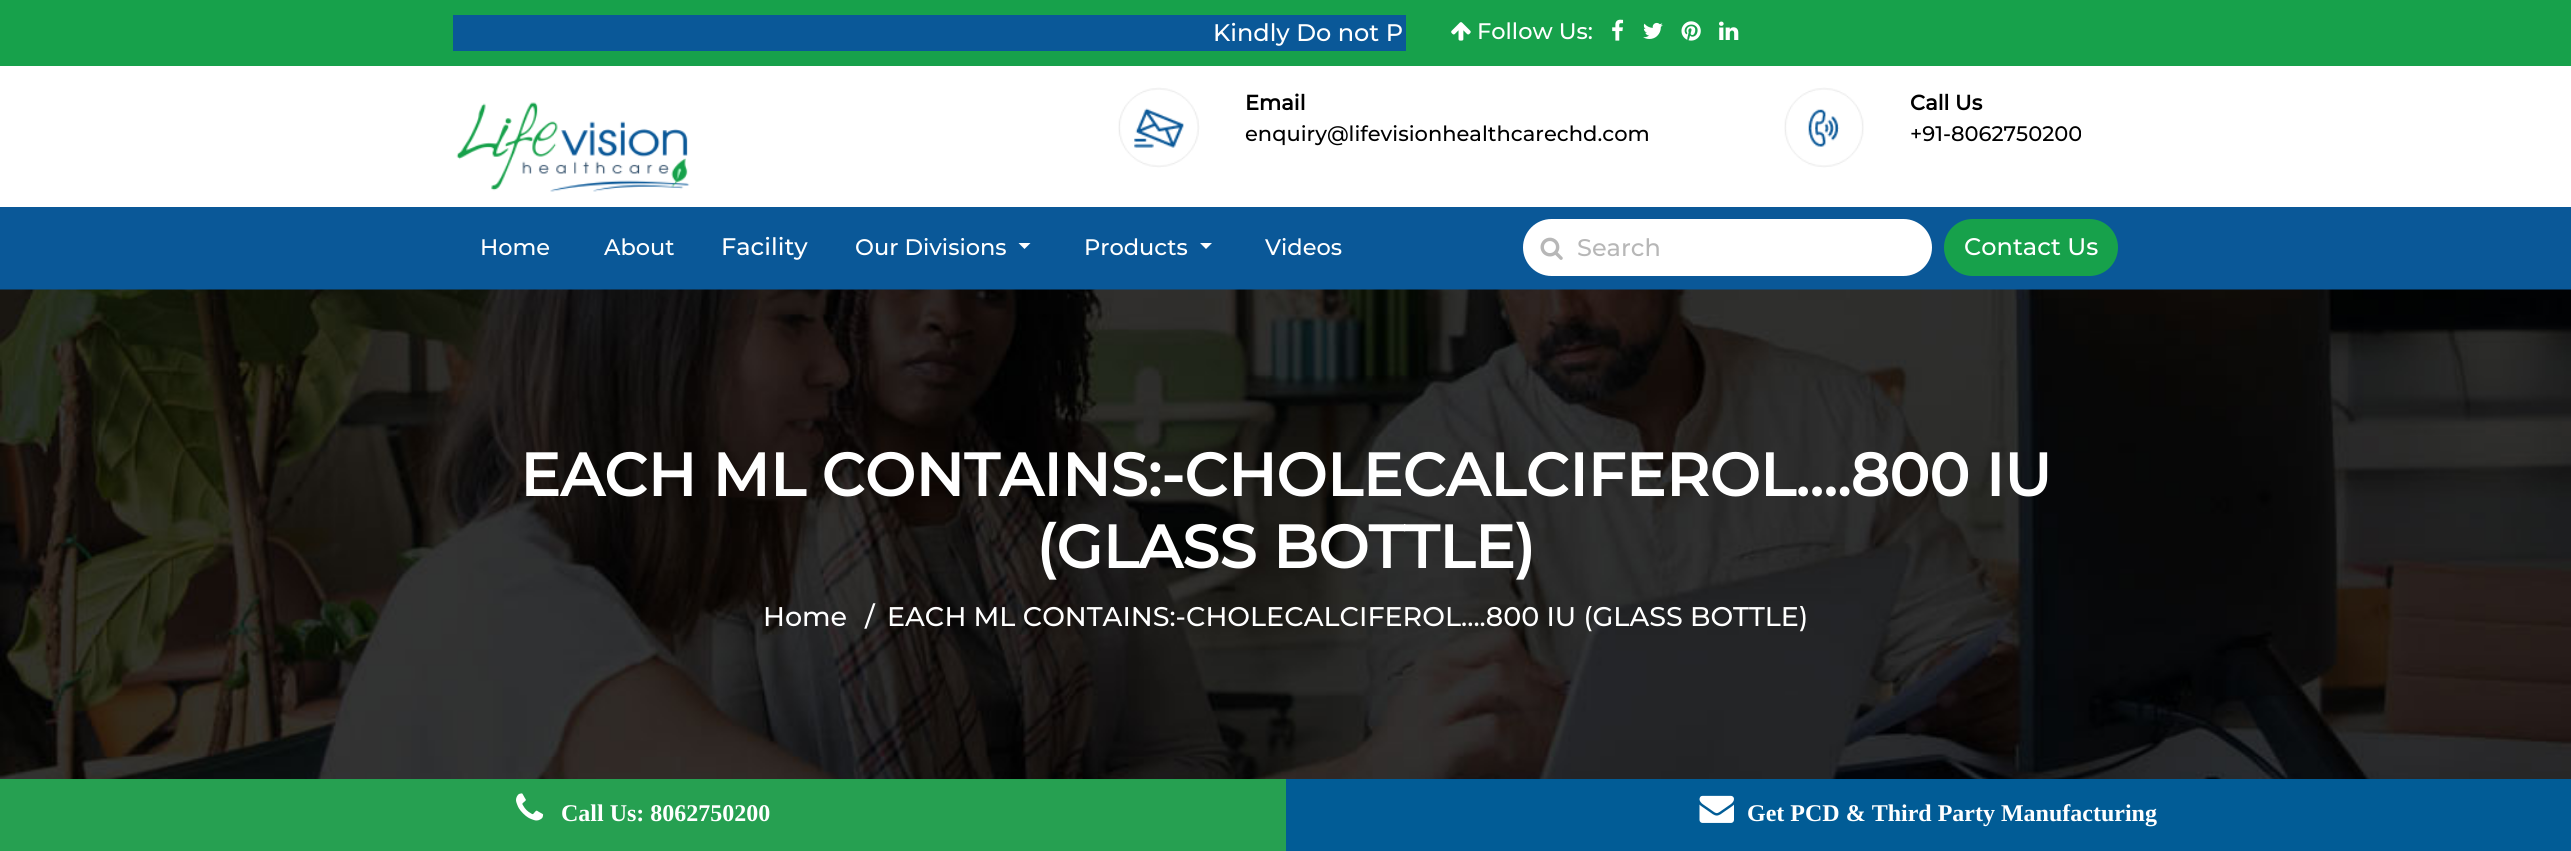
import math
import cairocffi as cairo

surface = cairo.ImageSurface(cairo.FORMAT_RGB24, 2571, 851)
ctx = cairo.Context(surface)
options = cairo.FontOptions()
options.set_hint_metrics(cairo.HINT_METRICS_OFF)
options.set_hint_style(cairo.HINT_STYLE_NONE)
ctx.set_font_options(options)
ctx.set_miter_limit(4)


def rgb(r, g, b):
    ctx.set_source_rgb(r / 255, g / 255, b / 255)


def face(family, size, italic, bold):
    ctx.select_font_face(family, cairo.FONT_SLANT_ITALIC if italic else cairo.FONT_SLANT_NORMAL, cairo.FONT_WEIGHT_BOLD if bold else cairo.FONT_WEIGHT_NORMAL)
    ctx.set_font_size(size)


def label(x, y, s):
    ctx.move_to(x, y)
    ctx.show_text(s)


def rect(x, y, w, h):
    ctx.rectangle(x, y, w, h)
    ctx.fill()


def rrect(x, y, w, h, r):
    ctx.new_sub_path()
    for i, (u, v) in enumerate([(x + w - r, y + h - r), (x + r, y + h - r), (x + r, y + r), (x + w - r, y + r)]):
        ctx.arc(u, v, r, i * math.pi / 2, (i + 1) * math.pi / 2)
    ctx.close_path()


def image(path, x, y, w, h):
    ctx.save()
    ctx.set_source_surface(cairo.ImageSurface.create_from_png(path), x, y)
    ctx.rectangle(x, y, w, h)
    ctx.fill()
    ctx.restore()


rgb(255, 255, 255)
ctx.paint()
rgb(23, 161, 75)
rect(0, 0, 2571, 66)
rgb(10, 88, 152)
rect(453, 15, 953, 36)
face('Montserrat Medium', 24, 0, 0)
rgb(255, 255, 255)
label(1213, 41, 'Kindly Do not P')
image('image0.png', 1451, 22, 20, 19)
face('Montserrat Medium', 22.5, 0, 0)
label(1477, 39, 'Follow Us:')
image('image1.png', 1612, 19, 12, 22)
image('image2.png', 1643, 22, 20, 17)
image('image3.png', 1681, 21, 20, 20)
image('image4.png', 1719, 21, 20, 19)
image('image5.png', 456, 102, 234, 90)
image('image6.png', 1118, 87, 82, 81)
face('Montserrat', 21, 0, 1)
rgb(0, 0, 0)
label(1245, 110, 'Email')
face('Montserrat Medium', 21, 0, 0)
label(1245, 141, 'enquiry@lifevisionhealthcarechd.com')
image('image7.png', 1784, 87, 80, 81)
face('Montserrat', 21, 0, 1)
label(1910, 110, 'Call Us')
face('Montserrat Medium', 21, 0, 0)
label(1910, 141, '+91-8062750200')
rgb(10, 88, 152)
rect(0, 207, 2571, 83)
face('Montserrat Medium', 22.5, 0, 0)
rgb(255, 255, 255)
label(480, 255, 'Home')
label(604, 255, 'About')
face('Montserrat Medium', 24, 0, 0)
label(721, 255, 'Facility')
face('Montserrat Medium', 22.5, 0, 0)
label(855, 255, 'Our Divisions')
ctx.new_path()
ctx.move_to(1018.5, 243)
ctx.line_to(1030.5, 243)
ctx.line_to(1024.5, 249)
ctx.close_path()
ctx.fill()
label(1084, 255, 'Products')
ctx.new_path()
ctx.move_to(1200, 243)
ctx.line_to(1212, 243)
ctx.line_to(1206, 249)
ctx.close_path()
ctx.fill()
label(1265, 255, 'Videos')
rrect(1523, 219, 409, 57, 28.5)
ctx.fill()
image('image8.png', 1540, 237, 23, 23)
face('Montserrat Medium', 24, 0, 0)
rgb(183, 183, 183)
label(1577, 256, 'Search')
rgb(23, 161, 75)
rrect(1945, 220, 172, 55, 27.5)
ctx.fill_preserve()
ctx.stroke()
rgb(255, 255, 255)
label(1964, 255, 'Contact Us')
image('image9.png', 0, 289, 2571, 490)
face('Montserrat', 60, 0, 1)
label(520, 496, 'EACH ML CONTAINS:-CHOLECALCIFEROL….800 IU')
label(1036, 568, '(GLASS BOTTLE)')
face('Montserrat Medium', 27, 0, 0)
label(763, 626, 'Home')
label(865, 626, '/')
label(887, 626, 'EACH ML CONTAINS:-CHOLECALCIFEROL….800 IU (GLASS BOTTLE)')
rgb(38, 160, 81)
rect(0, 779, 1286, 72)
image('image10.png', 516, 793, 28, 28)
face('Liberation Serif', 24, 0, 1)
rgb(255, 255, 255)
label(561, 821, 'Call Us: 8062750200')
rgb(1, 92, 150)
rect(1286, 779, 1285, 72)
image('image11.png', 1699, 795, 35, 28)
rgb(255, 255, 255)
label(1747, 821, 'Get PCD & Third Party Manufacturing')
surface.write_to_png('render.png')
